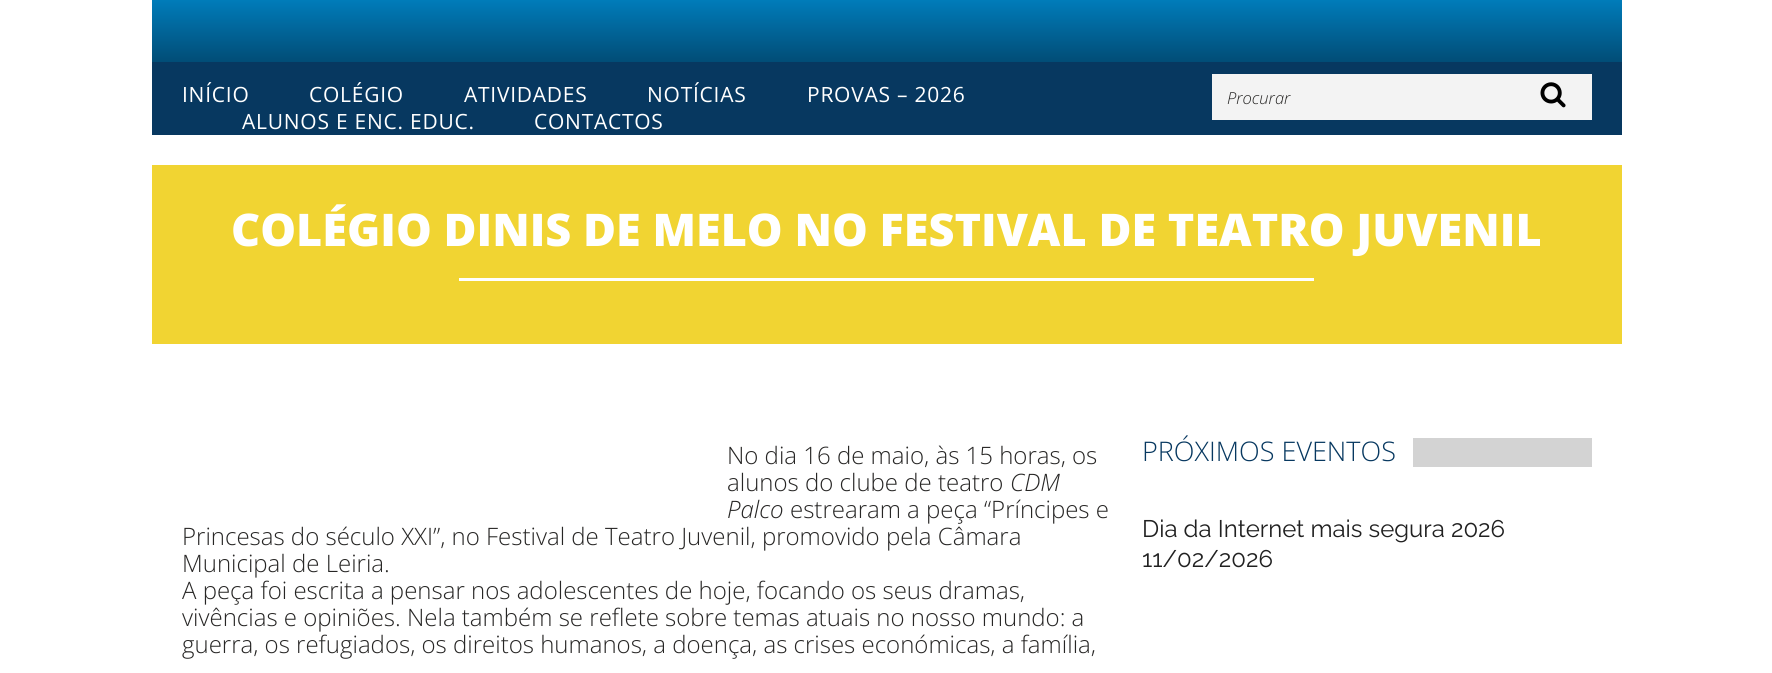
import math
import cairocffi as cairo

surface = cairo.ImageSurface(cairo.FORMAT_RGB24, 1772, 673)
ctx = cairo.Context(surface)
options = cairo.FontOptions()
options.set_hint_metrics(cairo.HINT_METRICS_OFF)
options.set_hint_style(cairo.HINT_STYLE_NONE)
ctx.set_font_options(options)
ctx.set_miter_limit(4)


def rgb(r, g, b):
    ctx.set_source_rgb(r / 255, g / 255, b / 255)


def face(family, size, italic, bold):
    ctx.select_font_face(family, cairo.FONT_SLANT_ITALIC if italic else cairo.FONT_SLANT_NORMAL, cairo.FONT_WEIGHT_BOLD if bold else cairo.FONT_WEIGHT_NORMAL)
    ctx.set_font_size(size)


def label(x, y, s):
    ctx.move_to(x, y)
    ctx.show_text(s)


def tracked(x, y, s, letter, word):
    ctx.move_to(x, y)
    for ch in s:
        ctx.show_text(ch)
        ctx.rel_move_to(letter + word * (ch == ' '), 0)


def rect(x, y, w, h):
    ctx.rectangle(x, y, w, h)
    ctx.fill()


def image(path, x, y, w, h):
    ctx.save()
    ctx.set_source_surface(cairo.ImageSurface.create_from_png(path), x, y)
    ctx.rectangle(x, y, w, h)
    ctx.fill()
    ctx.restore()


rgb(255, 255, 255)
ctx.paint()
gradient = cairo.LinearGradient(887, 0, 887, 135)
gradient.add_color_stop_rgba(0, 0, 0.486, 0.729, 1)
gradient.add_color_stop_rgba(1, 0.012, 0.082, 0.149, 1)
ctx.set_source(gradient)
rect(152, 0, 1470, 62)
rgb(7, 56, 96)
rect(152, 62, 1470, 73)
face('Open Sans', 21, 0, 0)
rgb(255, 255, 255)
tracked(182, 102, 'INÍCIO', 0.75, 0)
tracked(309, 102, 'COLÉGIO', 0.75, 0)
tracked(464, 102, 'ATIVIDADES', 0.75, 0)
tracked(647, 102, 'NOTÍCIAS', 0.75, 0)
tracked(807, 102, 'PROVAS – 2026', 0.75, 0)
tracked(242, 129, 'ALUNOS E ENC. EDUC.', 0.75, 0)
tracked(534, 129, 'CONTACTOS', 0.75, 0)
rgb(243, 243, 243)
rect(1212, 74, 380, 46)
face('Open Sans Light', 16.5, 1, 0)
rgb(39, 38, 37)
label(1227, 104, 'Procurar')
image('image0.png', 1540, 82, 26, 26)
rgb(241, 212, 50)
rect(152, 165, 1470, 179)
face('Open Sans ExtraBold', 45, 0, 0)
rgb(255, 255, 255)
label(231, 246, 'COLÉGIO DINIS DE MELO NO FESTIVAL DE TEATRO JUVENIL')
rect(459, 278, 855, 3)
face('Open Sans Light', 24, 0, 0)
rgb(39, 38, 37)
label(727, 464, 'No dia 16 de maio, às 15 horas, os')
label(727, 491, 'alunos do clube de teatro')
face('Open Sans Light', 24, 1, 0)
label(1010, 491, 'CDM')
label(727, 518, 'Palco')
face('Open Sans Light', 24, 0, 0)
label(790, 518, 'estrearam a peça “Príncipes e')
label(182, 545, 'Princesas do século XXI”, no Festival de Teatro Juvenil, promovido pela Câmara')
label(182, 572, 'Municipal de Leiria.')
label(182, 599, 'A peça foi escrita a pensar nos adolescentes de hoje, focando os seus dramas,')
label(182, 626, 'vivências e opiniões. Nela também se reflete sobre temas atuais no nosso mundo: a')
label(182, 653, 'guerra, os refugiados, os direitos humanos, a doença, as crises económicas, a família,')
face('Open Sans Light', 27, 0, 0)
rgb(7, 56, 96)
label(1142, 461, 'PRÓXIMOS EVENTOS')
rgb(211, 211, 211)
rect(1413, 438, 179, 29)
face('Raleway', 24, 0, 0)
rgb(33, 33, 33)
label(1142, 537, 'Dia da Internet mais segura 2026')
label(1142, 567, '11/02/2026')
surface.write_to_png('render.png')
